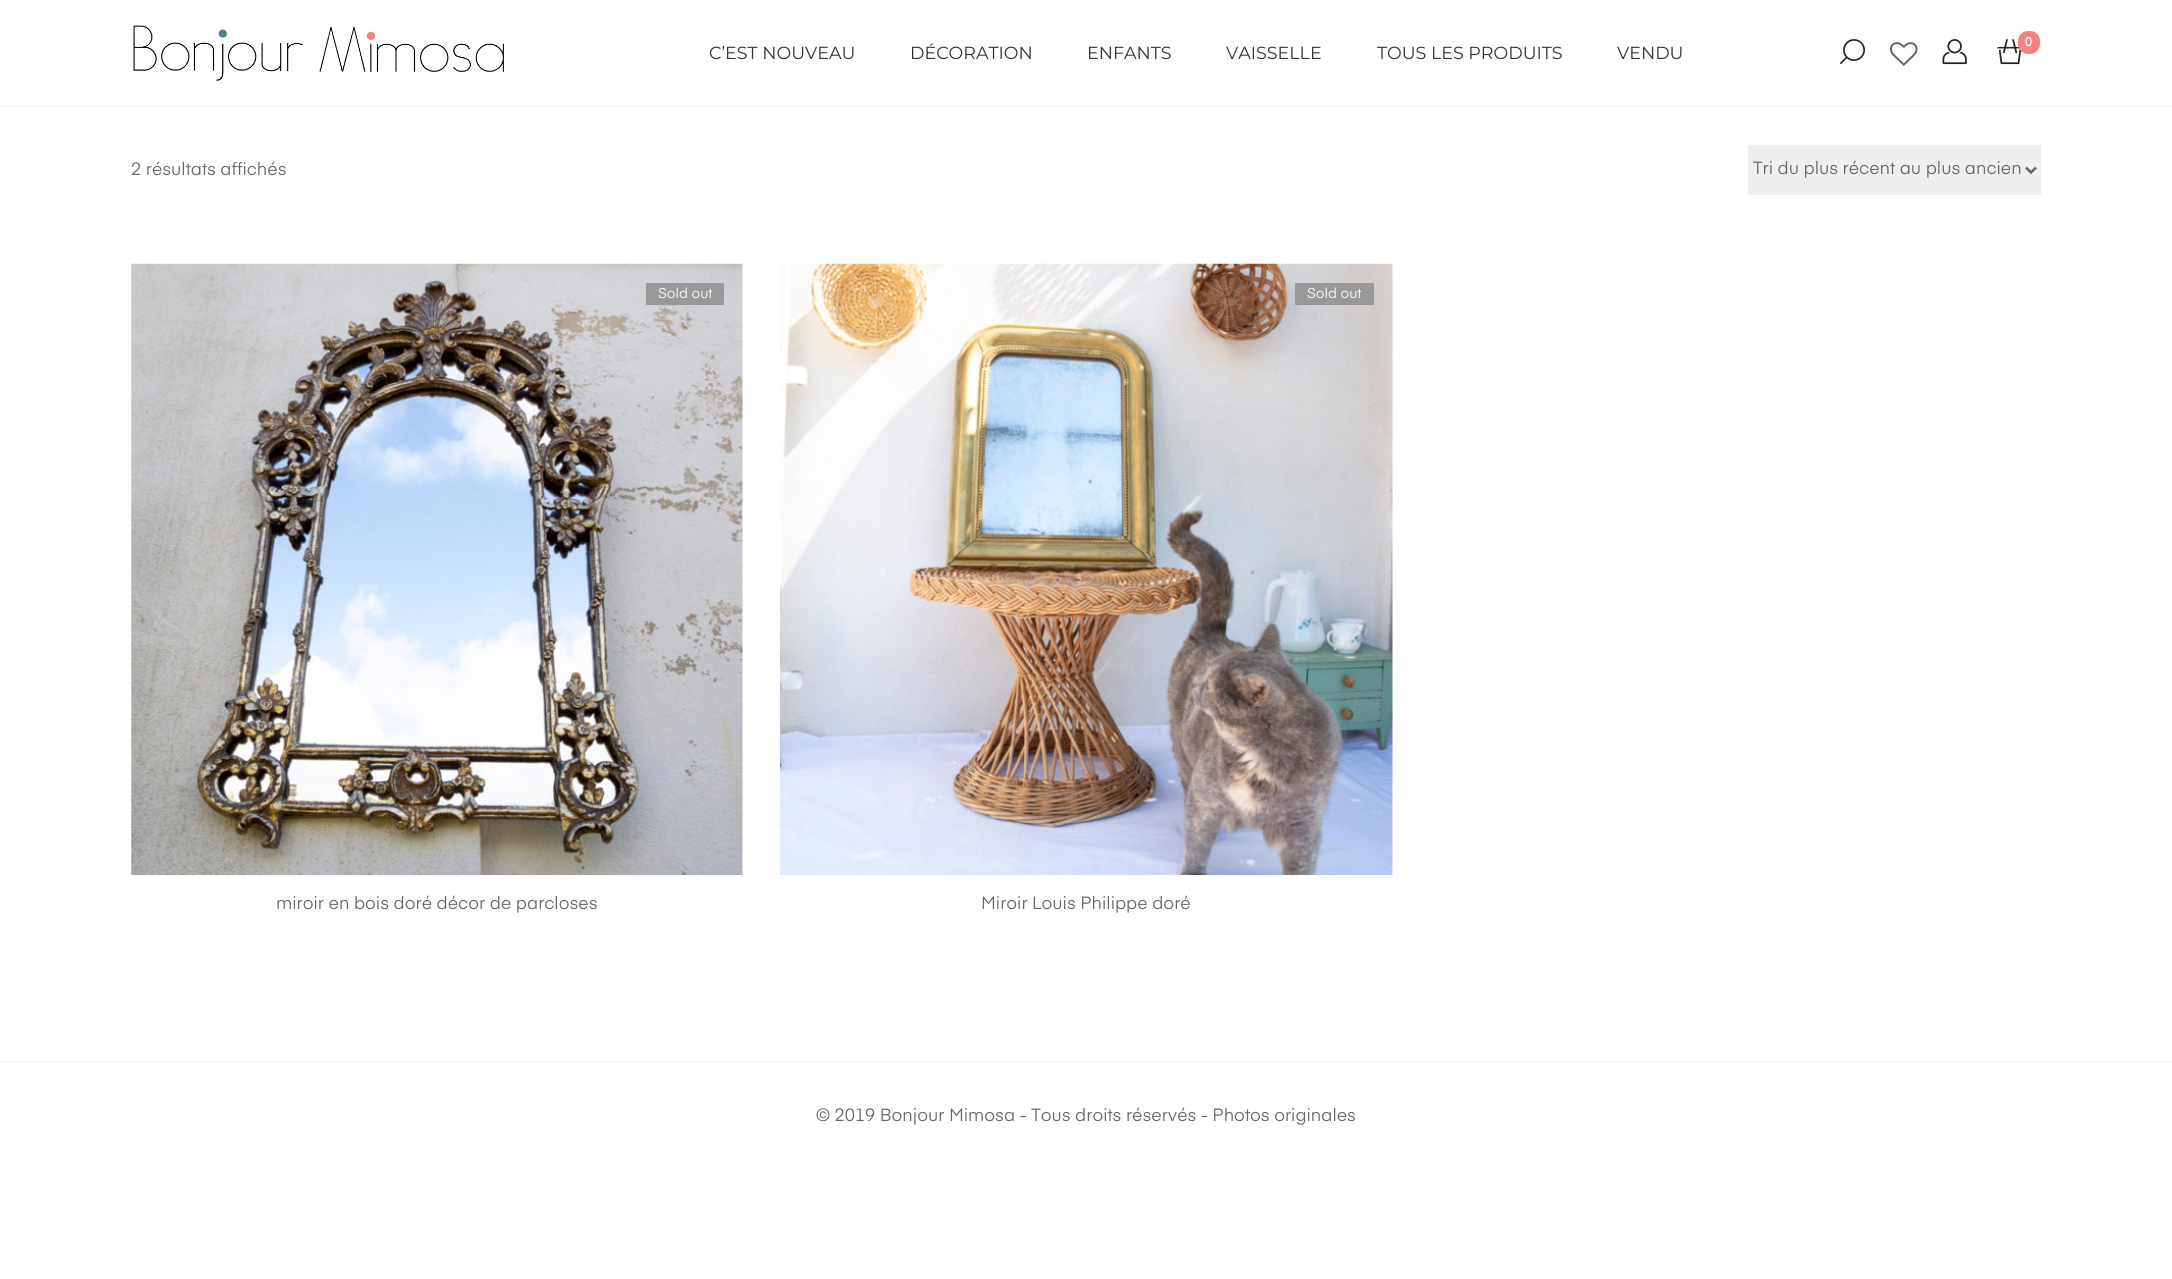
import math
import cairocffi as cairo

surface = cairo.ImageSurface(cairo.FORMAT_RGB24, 2172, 1279)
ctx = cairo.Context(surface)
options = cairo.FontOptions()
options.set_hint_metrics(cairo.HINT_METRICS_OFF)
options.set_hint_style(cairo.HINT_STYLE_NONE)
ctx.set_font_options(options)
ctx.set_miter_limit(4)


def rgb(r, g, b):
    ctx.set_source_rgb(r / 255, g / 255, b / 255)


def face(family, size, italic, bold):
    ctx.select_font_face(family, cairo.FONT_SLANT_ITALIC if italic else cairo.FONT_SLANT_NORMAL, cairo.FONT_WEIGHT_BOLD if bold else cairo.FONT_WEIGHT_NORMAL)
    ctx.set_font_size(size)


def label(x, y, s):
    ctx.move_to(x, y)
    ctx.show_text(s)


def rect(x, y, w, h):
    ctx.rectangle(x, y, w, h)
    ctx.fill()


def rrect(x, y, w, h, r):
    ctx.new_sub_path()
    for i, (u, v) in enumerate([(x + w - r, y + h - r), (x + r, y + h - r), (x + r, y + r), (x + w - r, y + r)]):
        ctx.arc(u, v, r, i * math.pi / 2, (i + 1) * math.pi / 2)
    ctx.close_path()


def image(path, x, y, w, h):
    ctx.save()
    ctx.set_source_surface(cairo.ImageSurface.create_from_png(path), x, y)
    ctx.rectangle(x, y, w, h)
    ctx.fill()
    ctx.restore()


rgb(255, 255, 255)
ctx.paint()
rgb(238, 238, 238)
rect(0, 106, 2172, 1)
image('image0.png', 133, 25, 371, 56)
image('image1.png', 1840, 39, 25, 25)
image('image2.png', 1890, 42, 28, 24)
image('image3.png', 1942, 39, 25, 26)
image('image4.png', 1997, 39, 24, 26)
rgb(242, 131, 127)
rrect(2018, 31, 22, 23, 10)
ctx.fill()
face('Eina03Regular', 12, 0, 1)
rgb(255, 255, 255)
label(2025, 46, '0')
face('Montserrat', 17.5, 0, 0)
rgb(51, 51, 51)
label(709, 59, 'C’EST NOUVEAU')
label(910, 59, 'DÉCORATION')
label(1087, 59, 'ENFANTS')
label(1226, 59, 'VAISSELLE')
label(1377, 59, 'TOUS LES PRODUITS')
label(1617, 59, 'VENDU')
face('Eina03Regular', 17.5, 0, 0)
rgb(102, 102, 102)
label(131, 175, '2 résultats affichés')
rgb(239, 239, 239)
rect(1748, 145, 293, 50)
ctx.new_path()
ctx.move_to(2026, 167.5)
ctx.line_to(2031, 172.5)
ctx.line_to(2036, 167.5)
rgb(102, 102, 102)
ctx.set_line_width(2.5)
ctx.stroke()
label(1753, 174, 'Tri du plus récent au plus ancien')
image('image5.png', 131, 263, 612, 612)
rgb(153, 153, 153)
rect(646, 283, 78, 22)
face('Eina03Regular', 14, 0, 0)
rgb(255, 255, 255)
label(658, 298, 'Sold out')
face('Eina03Regular', 17.5, 0, 0)
rgb(102, 102, 102)
label(276, 909, 'miroir en bois doré décor de parcloses')
image('image6.png', 780, 263, 613, 612)
rgb(153, 153, 153)
rect(1295, 283, 79, 22)
face('Eina03Regular', 14, 0, 0)
rgb(255, 255, 255)
label(1307, 298, 'Sold out')
face('Eina03Regular', 17.5, 0, 0)
rgb(102, 102, 102)
label(981, 909, 'Miroir Louis Philippe doré')
rgb(238, 238, 238)
rect(0, 1061, 2172, 1)
rgb(102, 102, 102)
label(816, 1121, '© 2019 Bonjour Mimosa - Tous droits réservés - Photos originales')
surface.write_to_png('render.png')
